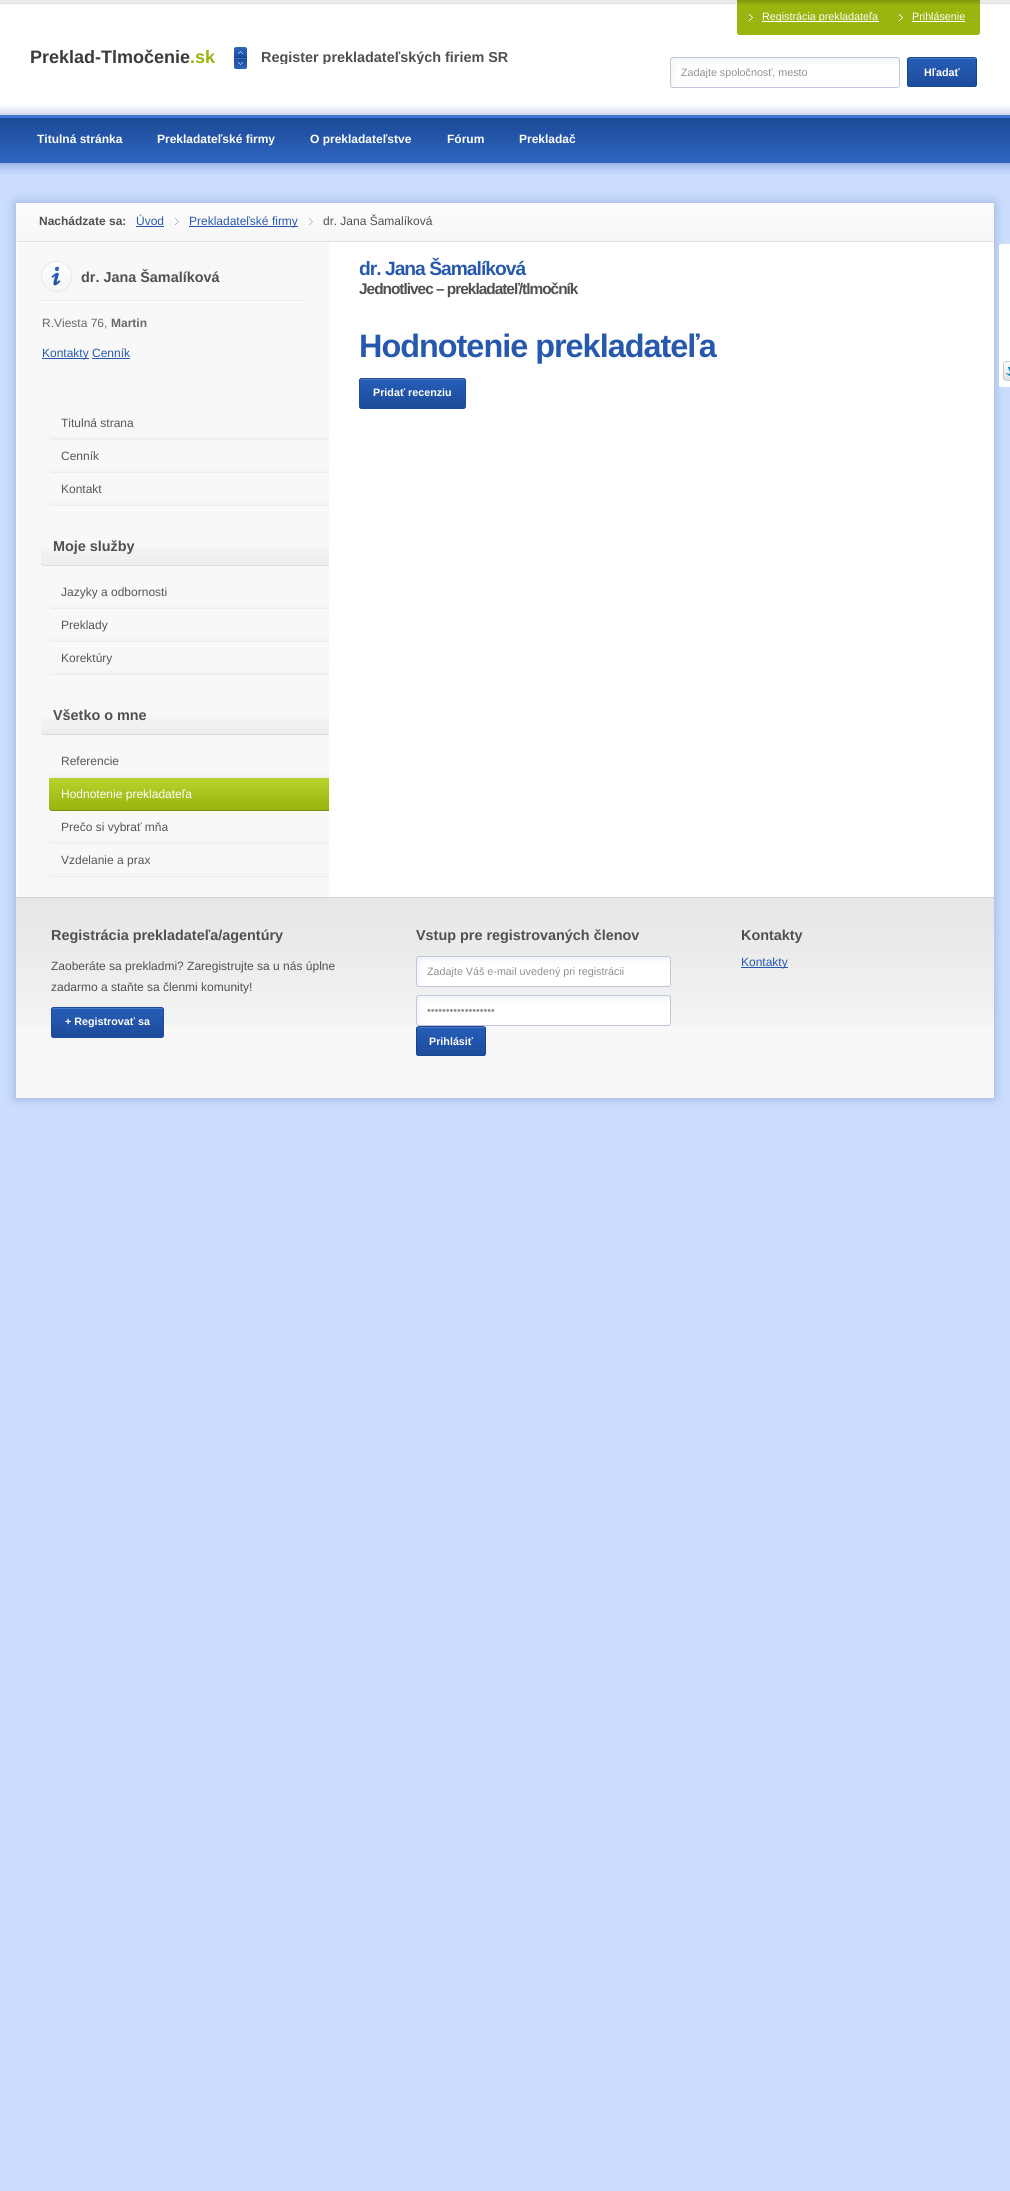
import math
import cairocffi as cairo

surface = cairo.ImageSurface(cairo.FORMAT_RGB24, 1010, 2191)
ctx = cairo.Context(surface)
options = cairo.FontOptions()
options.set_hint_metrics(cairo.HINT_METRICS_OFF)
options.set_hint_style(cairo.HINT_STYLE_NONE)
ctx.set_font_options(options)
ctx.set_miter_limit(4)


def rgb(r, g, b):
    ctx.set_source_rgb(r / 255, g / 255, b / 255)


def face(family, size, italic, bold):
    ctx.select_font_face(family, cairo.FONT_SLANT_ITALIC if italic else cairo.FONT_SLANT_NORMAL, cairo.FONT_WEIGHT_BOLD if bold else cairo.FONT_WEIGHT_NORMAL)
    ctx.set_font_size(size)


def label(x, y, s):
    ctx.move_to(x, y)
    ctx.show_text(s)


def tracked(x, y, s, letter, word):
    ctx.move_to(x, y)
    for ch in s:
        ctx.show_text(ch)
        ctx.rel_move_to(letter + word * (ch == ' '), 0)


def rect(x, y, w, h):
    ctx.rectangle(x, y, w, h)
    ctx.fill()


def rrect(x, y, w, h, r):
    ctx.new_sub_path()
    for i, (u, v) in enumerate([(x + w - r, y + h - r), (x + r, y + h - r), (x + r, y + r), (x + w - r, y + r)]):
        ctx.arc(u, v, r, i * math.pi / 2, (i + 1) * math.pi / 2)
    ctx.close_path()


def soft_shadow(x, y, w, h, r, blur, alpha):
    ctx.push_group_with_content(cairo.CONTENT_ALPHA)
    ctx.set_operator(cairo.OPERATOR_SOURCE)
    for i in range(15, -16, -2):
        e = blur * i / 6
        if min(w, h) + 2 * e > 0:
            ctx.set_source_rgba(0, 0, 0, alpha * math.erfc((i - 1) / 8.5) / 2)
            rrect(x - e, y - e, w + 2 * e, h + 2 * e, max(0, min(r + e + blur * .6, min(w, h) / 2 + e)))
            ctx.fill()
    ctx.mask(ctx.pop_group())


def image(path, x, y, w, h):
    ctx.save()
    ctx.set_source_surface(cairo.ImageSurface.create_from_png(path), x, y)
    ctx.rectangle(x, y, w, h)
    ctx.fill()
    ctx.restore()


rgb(203, 222, 255)
ctx.paint()
image('image0.png', 0, 0, 1010, 175)
image('image1.png', 737, 0, 243, 35)
image('image2.png', 749, 14, 4, 7)
rgb(255, 255, 255)
rect(762, 21, 117, 1)
face('Liberation Sans', 10.75, 0, 0)
label(762, 20, 'Registrácia prekladateľa')
image('image2.png', 899, 14, 4, 7)
label(912, 20, 'Prihlásenie')
rect(912, 21, 53, 1)
face('Liberation Sans', 18, 0, 1)
rgb(59, 59, 59)
label(30, 63, 'Preklad-Tlmočenie')
rgb(152, 181, 16)
label(190, 63, '.sk')
image('image3.png', 234, 47, 13, 11)
ctx.save()
ctx.rectangle(261, 50, 247, 14)
ctx.clip()
face('Liberation Sans', 14.4, 0, 1)
rgb(80, 80, 80)
label(261, 62, 'Register prekladateľských firiem SR')
ctx.restore()
image('image4.png', 234, 58, 13, 11)
image('image5.png', 671, 58, 229, 30)
rrect(670.5, 57.5, 229, 30, 2.5)
rgb(191, 200, 217)
ctx.set_line_width(1)
ctx.stroke()
ctx.save()
ctx.rectangle(681, 66, 208, 12)
ctx.clip()
face('Liberation Sans', 10.75, 0, 0)
rgb(144, 144, 144)
label(681, 76, 'Zadajte spoločnosť, mesto')
ctx.restore()
image('image6.png', 907, 58, 70, 29)
rrect(907.5, 57.5, 69, 29, 2.5)
rgb(24, 69, 143)
ctx.stroke()
face('Liberation Sans', 10.75, 0, 1)
rgb(255, 255, 255)
label(924, 76, 'Hľadať')
image('image7.png', 15, 115, 980, 48)
face('Liberation Sans', 12, 0, 1)
label(37, 143, 'Titulná stránka')
label(157, 143, 'Prekladateľské firmy')
label(310, 143, 'O prekladateľstve')
label(447, 143, 'Fórum')
label(519, 143, 'Prekladač')
rgb(151, 174, 213)
soft_shadow(16, 203, 978, 895, 0, 6, 1)
rgb(255, 255, 255)
rect(16, 242, 978, 655)
rgb(248, 248, 248)
rect(17, 243, 312, 654)
image('image8.png', 16, 203, 978, 38)
rgb(224, 224, 224)
rect(16, 241, 978, 1)
rgb(80, 80, 80)
label(39, 225, 'Nachádzate sa:')
face('Liberation Sans', 12, 0, 0)
rgb(38, 89, 174)
label(136, 225, 'Úvod')
rect(136, 226, 28, 1)
image('image9.png', 175, 218, 4, 7)
rect(189, 226, 109, 1)
label(189, 225, 'Prekladateľské firmy')
image('image9.png', 309, 218, 4, 7)
rgb(80, 80, 80)
label(323, 225, 'dr. Jana Šamalíková')
image('image10.png', 41, 300, 264, 2)
image('image11.png', 41, 261, 31, 31)
face('Liberation Sans', 14.4, 0, 1)
label(81, 282, 'dr. Jana Šamalíková')
face('Liberation Sans', 12, 0, 0)
rgb(105, 105, 105)
label(42, 327, 'R.Viesta 76,')
face('Liberation Sans', 12, 0, 1)
label(111, 327, 'Martin')
rgb(38, 89, 174)
rect(42, 358, 47, 1)
face('Liberation Sans', 12, 0, 0)
label(42, 357, 'Kontakty Cenník')
rect(92, 358, 38, 1)
image('image12.png', 49, 436, 280, 4)
rgb(86, 86, 86)
label(61, 427, 'Titulná strana')
image('image12.png', 49, 469, 280, 4)
label(61, 460, 'Cenník')
image('image12.png', 49, 502, 280, 4)
label(61, 493, 'Kontakt')
image('image13.png', 41, 548, 288, 18)
face('Liberation Sans', 14.4, 0, 1)
rgb(80, 80, 80)
label(53, 551, 'Moje služby')
image('image12.png', 49, 605, 280, 4)
face('Liberation Sans', 12, 0, 0)
rgb(86, 86, 86)
label(61, 596, 'Jazyky a odbornosti')
image('image12.png', 49, 638, 280, 4)
label(61, 629, 'Preklady')
image('image12.png', 49, 671, 280, 4)
label(61, 662, 'Korektúry')
image('image13.png', 41, 717, 288, 18)
face('Liberation Sans', 14.4, 0, 1)
rgb(80, 80, 80)
label(53, 720, 'Všetko o mne')
image('image12.png', 49, 774, 280, 4)
face('Liberation Sans', 12, 0, 0)
rgb(86, 86, 86)
label(61, 765, 'Referencie')
image('image14.png', 49, 778, 280, 33)
rgb(255, 255, 255)
label(61, 798, 'Hodnotenie prekladateľa')
image('image12.png', 49, 840, 280, 4)
rgb(86, 86, 86)
label(61, 831, 'Prečo si vybrať mňa')
image('image12.png', 49, 873, 280, 4)
label(61, 864, 'Vzdelanie a prax')
face('Liberation Sans', 19.25, 0, 1)
rgb(38, 89, 174)
tracked(359, 275, 'dr. Jana Šamalíková', -1, 0)
face('Liberation Sans', 15.4, 0, 1)
rgb(80, 80, 80)
tracked(359, 294, 'Jednotlivec – prekladateľ/tlmočník', -1, 0)
face('Liberation Sans', 32.4, 0, 1)
rgb(38, 89, 174)
tracked(359, 357, 'Hodnotenie prekladateľa', -1, 0)
rgb(29, 77, 156)
rrect(359, 378, 107, 31, 3)
ctx.fill()
image('image15.png', 359, 379, 107, 28)
rrect(359.5, 378.5, 106, 30, 2.5)
ctx.stroke()
face('Liberation Sans', 10.75, 0, 1)
rgb(255, 255, 255)
label(373, 396, 'Pridať recenziu')
rgb(248, 248, 248)
rect(16, 1025, 978, 73)
image('image16.png', 16, 898, 978, 127)
rgb(213, 213, 213)
rect(16, 897, 978, 1)
face('Liberation Sans', 14.4, 0, 1)
rgb(80, 80, 80)
label(51, 940, 'Registrácia prekladateľa/agentúry')
face('Liberation Sans', 12, 0, 0)
label(51, 970, 'Zaoberáte sa prekladmi? Zaregistrujte sa u nás úplne')
label(51, 991, 'zadarmo a staňte sa členmi komunity!')
rgb(29, 77, 156)
rrect(51, 1007, 113, 31, 3)
ctx.fill()
image('image17.png', 51, 1008, 113, 28)
rrect(51.5, 1007.5, 112, 30, 2.5)
ctx.stroke()
face('Liberation Sans', 10.75, 0, 1)
rgb(255, 255, 255)
label(65, 1025, '+ Registrovať sa')
face('Liberation Sans', 14.4, 0, 1)
rgb(80, 80, 80)
label(416, 940, 'Vstup pre registrovaných členov')
image('image18.png', 417, 957, 254, 30)
rrect(416.5, 956.5, 254, 30, 2.5)
rgb(191, 200, 217)
ctx.stroke()
ctx.save()
ctx.rectangle(427, 965, 233, 12)
ctx.clip()
face('Liberation Sans', 10.75, 0, 0)
rgb(144, 144, 144)
label(427, 975, 'Zadajte Váš e-mail uvedený pri registrácii')
ctx.restore()
image('image19.png', 417, 996, 254, 30)
rrect(416.5, 995.5, 254, 30, 2.5)
ctx.stroke()
face('Liberation Sans', 10.75, 0, 0)
rgb(144, 144, 144)
label(427, 1014, '••••••••••••••••••')
image('image20.png', 416, 1027, 70, 29)
rrect(416.5, 1026.5, 69, 29, 2.5)
rgb(24, 69, 143)
ctx.stroke()
face('Liberation Sans', 10.75, 0, 1)
rgb(255, 255, 255)
label(429, 1045, 'Prihlásiť')
face('Liberation Sans', 14.4, 0, 1)
rgb(80, 80, 80)
label(741, 940, 'Kontakty')
rgb(38, 89, 174)
rect(741, 967, 47, 1)
face('Liberation Sans', 12, 0, 0)
label(741, 966, 'Kontakty')
rgb(255, 255, 255)
rrect(999, 244, 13, 143, 2)
ctx.fill()
image('image21.png', 1003, 361, 7, 20)
surface.write_to_png('render.png')
